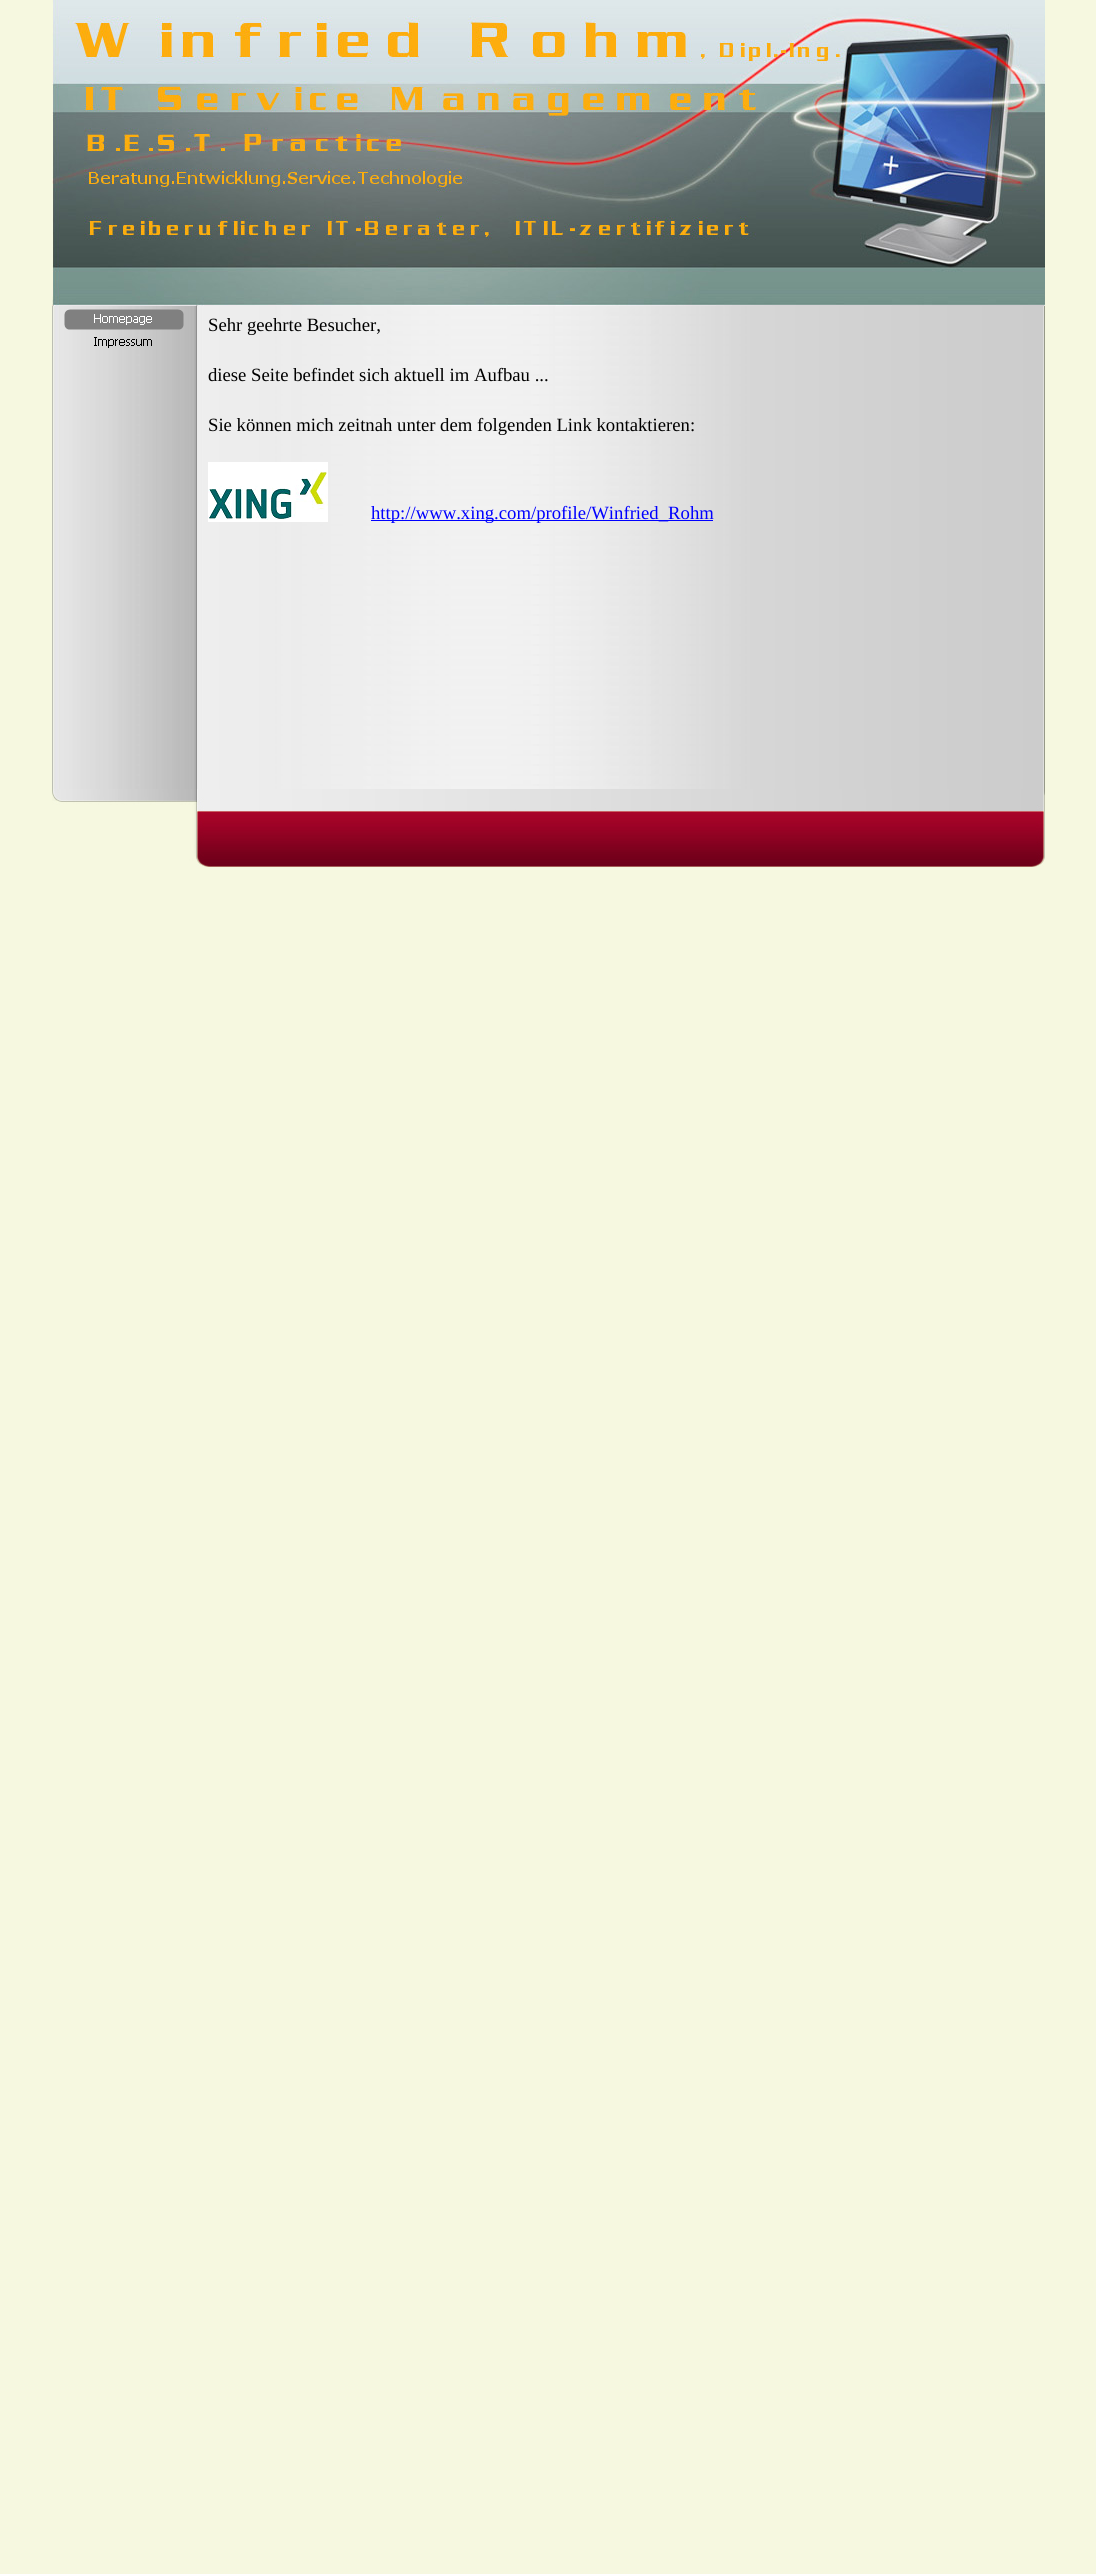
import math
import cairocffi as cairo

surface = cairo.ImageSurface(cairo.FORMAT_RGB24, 1096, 2574)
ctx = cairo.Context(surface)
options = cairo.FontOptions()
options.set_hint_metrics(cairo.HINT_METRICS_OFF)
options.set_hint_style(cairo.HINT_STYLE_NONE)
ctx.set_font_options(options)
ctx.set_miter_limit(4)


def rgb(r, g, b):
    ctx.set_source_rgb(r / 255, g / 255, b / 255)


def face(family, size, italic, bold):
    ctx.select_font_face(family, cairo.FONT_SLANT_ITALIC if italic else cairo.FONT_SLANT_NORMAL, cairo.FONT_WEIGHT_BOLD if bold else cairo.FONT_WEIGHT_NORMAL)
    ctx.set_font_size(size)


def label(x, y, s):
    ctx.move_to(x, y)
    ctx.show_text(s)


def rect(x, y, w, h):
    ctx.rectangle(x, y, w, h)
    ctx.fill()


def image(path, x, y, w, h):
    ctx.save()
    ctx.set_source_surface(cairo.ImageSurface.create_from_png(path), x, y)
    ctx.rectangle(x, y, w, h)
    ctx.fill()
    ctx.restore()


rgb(246, 248, 224)
ctx.paint()
image('image0.png', 52, 0, 993, 306)
image('image1.png', 52, 306, 145, 483)
image('image2.png', 197, 306, 848, 483)
image('image3.png', 64, 309, 120, 21)
image('image4.png', 94, 337, 58, 11)
face('Liberation Serif', 18.7, 0, 0)
rgb(0, 0, 0)
label(208, 331, 'Sehr geehrte Besucher,')
label(208, 381, 'diese Seite befindet sich aktuell im Aufbau ...')
label(208, 431, 'Sie können mich zeitnah unter dem folgenden Link kontaktieren:')
image('image5.png', 208, 462, 120, 60)
rgb(0, 0, 255)
rect(371, 520, 342, 1)
label(371, 519, 'http://www.xing.com/profile/Winfried_Rohm')
image('image6.png', 52, 789, 993, 78)
surface.write_to_png('render.png')
